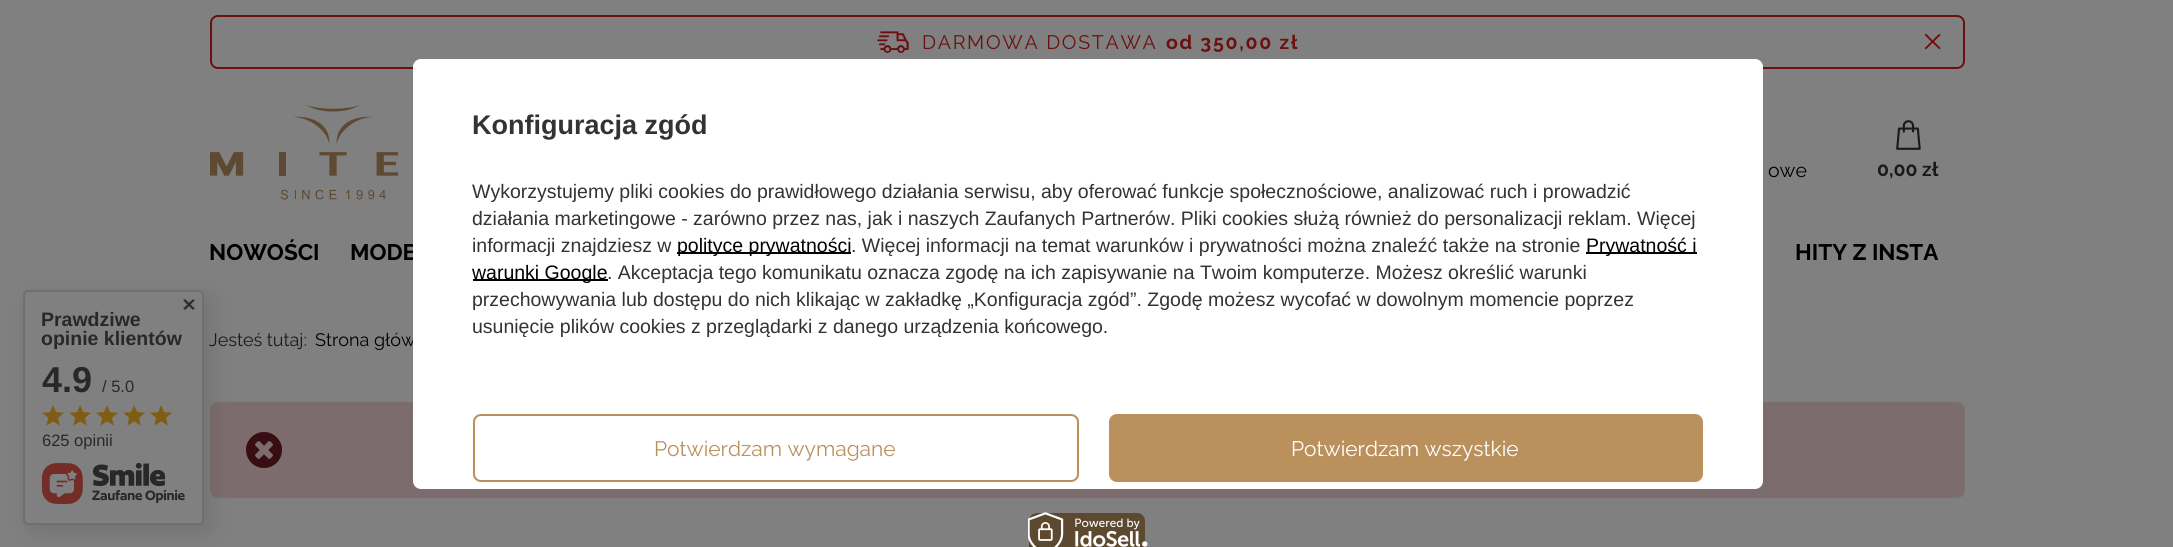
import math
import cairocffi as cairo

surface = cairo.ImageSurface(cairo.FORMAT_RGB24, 2173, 547)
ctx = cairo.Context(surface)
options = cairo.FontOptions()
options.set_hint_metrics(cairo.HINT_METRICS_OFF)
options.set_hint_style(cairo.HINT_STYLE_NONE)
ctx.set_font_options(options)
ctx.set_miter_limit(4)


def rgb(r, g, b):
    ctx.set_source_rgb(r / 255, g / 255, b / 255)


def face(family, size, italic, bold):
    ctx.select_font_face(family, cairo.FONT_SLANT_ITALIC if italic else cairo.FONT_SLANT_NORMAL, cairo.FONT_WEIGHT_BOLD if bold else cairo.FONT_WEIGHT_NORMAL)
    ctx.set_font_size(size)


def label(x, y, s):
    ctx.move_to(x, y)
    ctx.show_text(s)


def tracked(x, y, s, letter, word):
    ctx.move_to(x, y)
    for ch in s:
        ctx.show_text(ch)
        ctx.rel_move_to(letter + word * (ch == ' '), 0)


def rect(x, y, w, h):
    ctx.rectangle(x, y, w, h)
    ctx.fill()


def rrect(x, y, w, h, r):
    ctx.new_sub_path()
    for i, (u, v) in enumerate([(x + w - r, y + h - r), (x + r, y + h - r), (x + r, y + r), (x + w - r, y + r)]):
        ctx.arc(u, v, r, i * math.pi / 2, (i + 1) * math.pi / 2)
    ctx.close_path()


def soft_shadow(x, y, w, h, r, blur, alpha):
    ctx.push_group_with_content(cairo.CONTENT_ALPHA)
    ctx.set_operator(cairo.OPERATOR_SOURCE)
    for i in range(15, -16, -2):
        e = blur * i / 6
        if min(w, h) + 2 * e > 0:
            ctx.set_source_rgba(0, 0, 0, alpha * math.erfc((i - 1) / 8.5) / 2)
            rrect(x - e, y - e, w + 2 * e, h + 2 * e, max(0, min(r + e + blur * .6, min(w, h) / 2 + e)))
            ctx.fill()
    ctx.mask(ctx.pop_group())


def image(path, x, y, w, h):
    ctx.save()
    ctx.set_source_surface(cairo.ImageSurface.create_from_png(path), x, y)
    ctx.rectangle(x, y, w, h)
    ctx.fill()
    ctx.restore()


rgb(128, 128, 128)
ctx.paint()
rrect(211, 16, 1753, 52, 7)
rgb(108, 15, 15)
ctx.stroke()
image('image0.png', 877, 31, 32, 22)
face('Raleway', 19.5, 0, 0)
tracked(922, 49, 'DARMOWA DOSTAWA', 1.75, 0)
face('Raleway', 19.5, 0, 1)
tracked(1166, 49, 'od 350,00 zł', 1.75, 0)
image('image1.png', 1924, 33, 17, 17)
image('image2.png', 210, 105, 189, 95)
face('Raleway', 19.5, 0, 0)
rgb(0, 0, 0)
label(1768, 177, 'owe')
image('image3.png', 1896, 120, 25, 30)
face('Raleway', 19.5, 0, 1)
rgb(26, 26, 26)
label(1877, 176, '0,00 zł')
face('Raleway', 22.5, 0, 1)
rgb(0, 0, 0)
label(209, 260, 'NOWOŚCI')
label(350, 260, 'MODE')
label(1795, 260, 'HITY Z INSTA')
face('Raleway', 18, 0, 0)
rgb(26, 26, 26)
label(209, 346, 'Jesteś tutaj:')
rgb(0, 0, 0)
label(315, 346, 'Strona głów')
rgb(124, 108, 109)
rrect(210, 402, 1755, 96, 8)
ctx.fill()
image('image4.png', 246, 432, 36, 36)
rgb(93, 73, 47)
rrect(1030, 514, 114, 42, 7)
ctx.fill_preserve()
ctx.stroke()
rgb(0, 0, 0)
soft_shadow(30, 297, 182, 236, 5, 11, 0.1)
rgb(128, 128, 128)
rrect(24, 291, 179, 233, 4)
ctx.fill_preserve()
rgb(111, 111, 111)
ctx.stroke()
image('image5.png', 183, 299, 12, 11)
face('Liberation Sans', 19.5, 0, 1)
rgb(40, 40, 40)
label(41, 326, 'Prawdziwe')
label(41, 345, 'opinie klientów')
face('Liberation Sans', 36, 0, 1)
label(42, 392, '4.9')
face('Liberation Sans', 16.5, 0, 0)
label(102, 392, '/ 5.0')
image('image6.png', 42, 405, 22, 21)
image('image6.png', 69, 405, 22, 21)
image('image6.png', 96, 405, 22, 21)
image('image6.png', 123, 405, 22, 21)
image('image6.png', 150, 405, 22, 21)
label(42, 446, '625 opinii')
image('image7.png', 41, 462, 144, 43)
rgb(255, 255, 255)
rrect(413, 59, 1350, 430, 8)
ctx.fill()
face('Liberation Sans', 27, 0, 1)
rgb(51, 51, 51)
label(472, 134, 'Konfiguracja zgód')
face('Liberation Sans', 19.5, 0, 0)
label(472, 198, 'Wykorzystujemy pliki cookies do prawidłowego działania serwisu, aby oferować funkcje społecznościowe, analizować ruch i prowadzić')
label(472, 225, 'działania marketingowe - zarówno przez nas, jak i naszych Zaufanych Partnerów. Pliki cookies służą również do personalizacji reklam. Więcej')
label(472, 252, 'informacji znajdziesz w')
rgb(0, 0, 0)
rect(677, 252, 174, 2)
label(677, 252, 'polityce prywatności')
rgb(51, 51, 51)
label(851, 252, '. Więcej informacji na temat warunków i prywatności można znaleźć także na stronie')
rgb(0, 0, 0)
rect(1586, 252, 111, 2)
label(1586, 252, 'Prywatność i')
rect(473, 279, 135, 2)
label(472, 279, 'warunki Google')
rgb(51, 51, 51)
label(607, 279, '. Akceptacja tego komunikatu oznacza zgodę na ich zapisywanie na Twoim komputerze. Możesz określić warunki')
label(472, 306, 'przechowywania lub dostępu do nich klikając w zakładkę „Konfiguracja zgód”. Zgodę możesz wycofać w dowolnym momencie poprzez')
label(472, 333, 'usunięcie plików cookies z przeglądarki z danego urządzenia końcowego.')
rrect(474, 415, 604, 66, 7)
rgb(186, 145, 93)
ctx.stroke()
face('Raleway', 21, 0, 0)
label(654, 456, 'Potwierdzam wymagane')
rrect(1110, 415, 592, 66, 7)
ctx.fill_preserve()
ctx.stroke()
rgb(255, 255, 255)
label(1291, 456, 'Potwierdzam wszystkie')
image('image8.png', 1028, 512, 120, 35)
surface.write_to_png('render.png')
